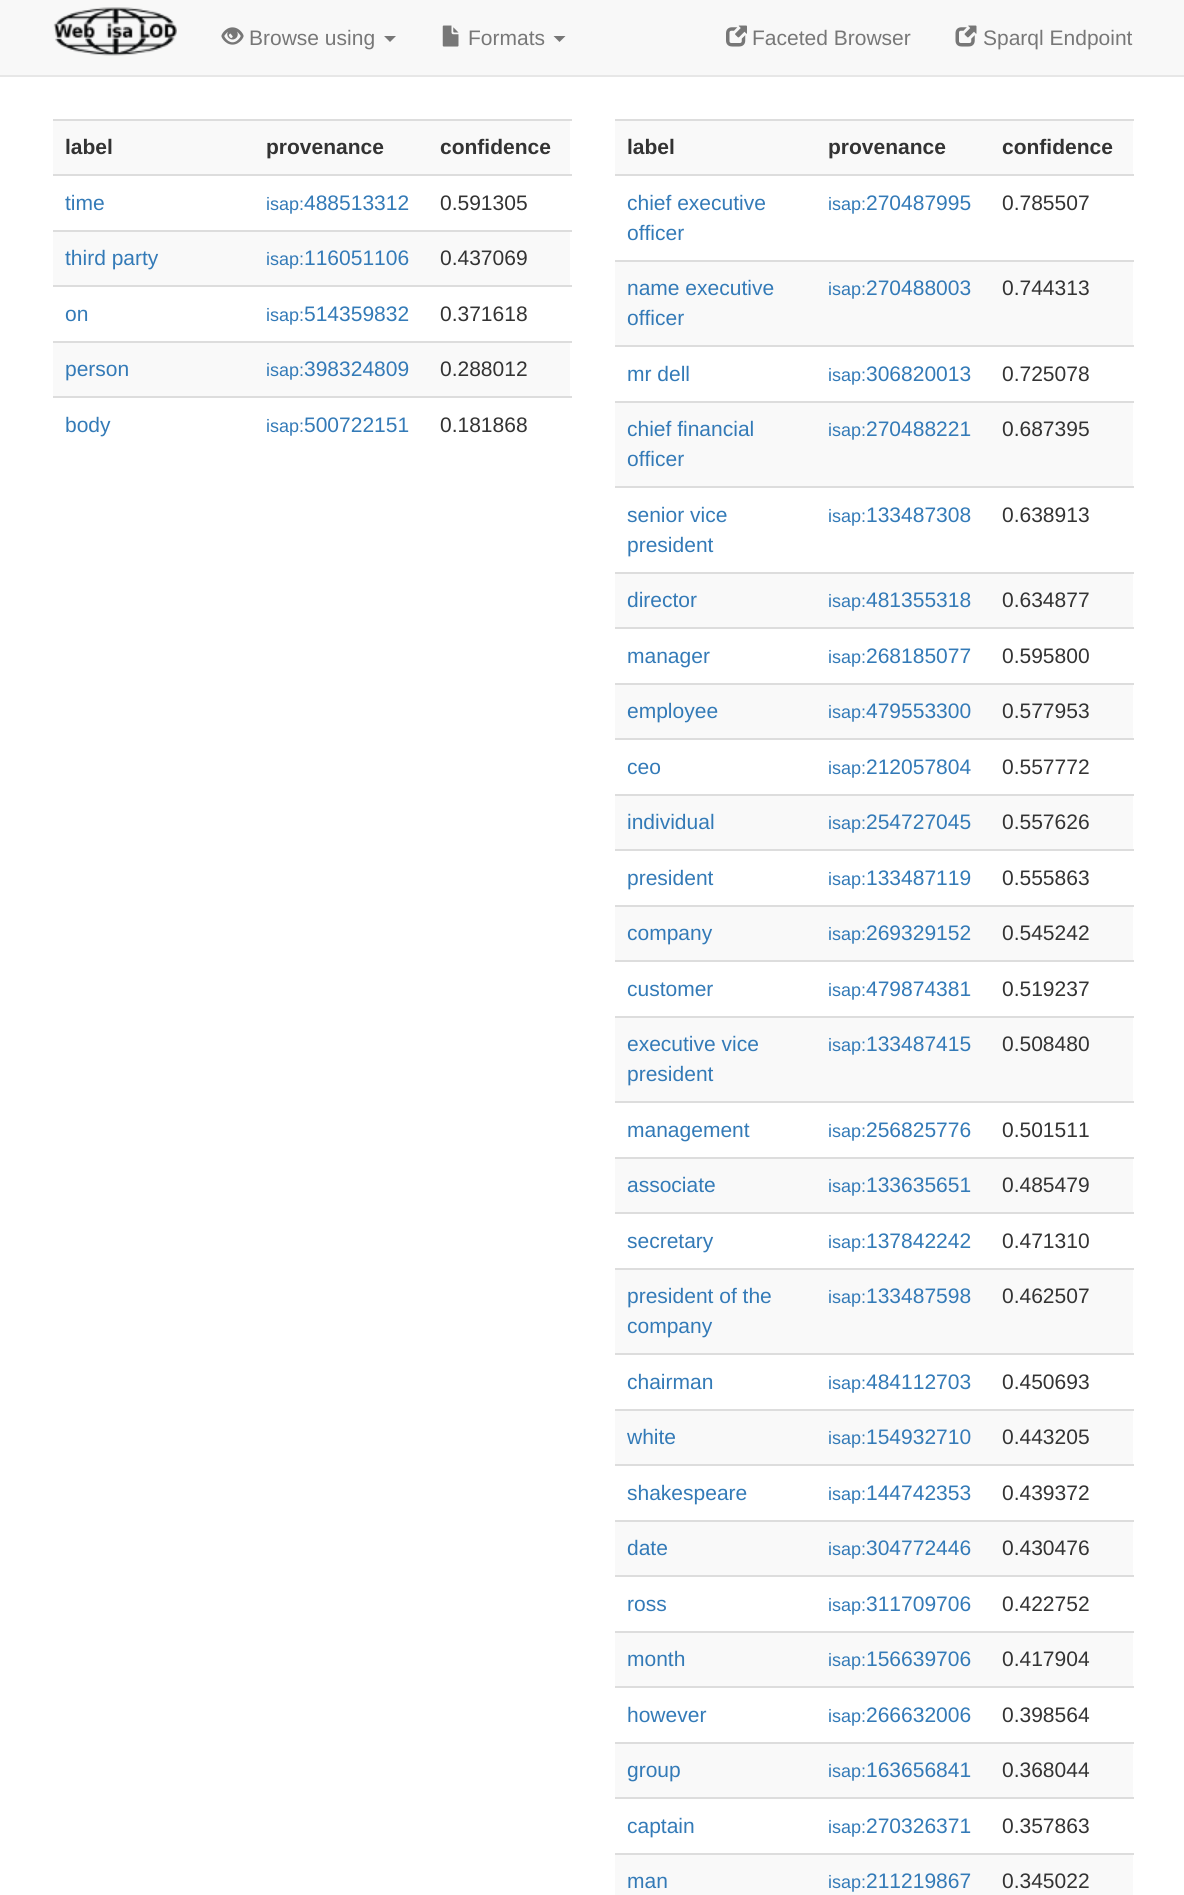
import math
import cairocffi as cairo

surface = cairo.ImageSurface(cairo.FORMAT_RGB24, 1184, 1895)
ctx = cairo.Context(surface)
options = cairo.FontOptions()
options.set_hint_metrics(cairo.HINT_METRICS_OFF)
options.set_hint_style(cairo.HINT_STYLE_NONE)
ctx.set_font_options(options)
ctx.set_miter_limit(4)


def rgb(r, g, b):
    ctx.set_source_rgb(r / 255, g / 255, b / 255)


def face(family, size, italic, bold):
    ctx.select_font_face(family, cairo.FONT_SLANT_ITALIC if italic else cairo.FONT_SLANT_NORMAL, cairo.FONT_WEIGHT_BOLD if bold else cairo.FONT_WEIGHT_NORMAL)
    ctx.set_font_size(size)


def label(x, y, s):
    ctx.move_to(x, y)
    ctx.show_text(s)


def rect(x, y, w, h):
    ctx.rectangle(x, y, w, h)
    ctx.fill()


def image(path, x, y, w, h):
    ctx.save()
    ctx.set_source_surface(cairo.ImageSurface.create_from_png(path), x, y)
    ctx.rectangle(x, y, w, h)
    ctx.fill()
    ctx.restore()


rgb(255, 255, 255)
ctx.paint()
rgb(248, 248, 248)
rect(0, 0, 1184, 75)
rgb(231, 231, 231)
rect(0, 75, 1184, 2)
image('image0.png', 53, 7, 124, 49)
image('image1.png', 221, 27, 23, 18)
face('Liberation Sans', 21, 0, 0)
rgb(119, 119, 119)
label(249, 45, 'Browse using')
ctx.new_path()
ctx.move_to(384, 36)
ctx.line_to(396, 36)
ctx.line_to(390, 42)
ctx.close_path()
ctx.fill()
image('image2.png', 442, 25, 17, 22)
label(468, 45, 'Formats')
ctx.new_path()
ctx.move_to(553.5, 36)
ctx.line_to(565.5, 36)
ctx.line_to(559.5, 42)
ctx.close_path()
ctx.fill()
image('image3.png', 726, 25, 21, 22)
label(752, 45, 'Faceted Browser')
image('image4.png', 955, 25, 22, 22)
label(983, 45, 'Sparql Endpoint')
rgb(249, 249, 249)
rect(53, 121, 517, 53)
face('Liberation Sans', 21, 0, 1)
rgb(51, 51, 51)
label(65, 154, 'label')
label(266, 154, 'provenance')
rgb(221, 221, 221)
rect(53, 119, 519, 2)
rgb(51, 51, 51)
label(440, 154, 'confidence')
face('Liberation Sans', 21, 0, 0)
rgb(51, 122, 183)
label(65, 210, 'time')
face('Liberation Sans', 18, 0, 0)
label(266, 210, 'isap:')
face('Liberation Sans', 21, 0, 0)
label(304, 210, '488513312')
rgb(221, 221, 221)
rect(53, 174, 519, 2)
rgb(51, 51, 51)
label(440, 210, '0.591305')
rgb(249, 249, 249)
rect(53, 232, 517, 53)
rgb(51, 122, 183)
label(65, 265, 'third party')
face('Liberation Sans', 18, 0, 0)
label(266, 265, 'isap:')
face('Liberation Sans', 21, 0, 0)
label(304, 265, '116051106')
rgb(221, 221, 221)
rect(53, 230, 519, 2)
rgb(51, 51, 51)
label(440, 265, '0.437069')
rgb(51, 122, 183)
label(65, 321, 'on')
face('Liberation Sans', 18, 0, 0)
label(266, 321, 'isap:')
face('Liberation Sans', 21, 0, 0)
label(304, 321, '514359832')
rgb(221, 221, 221)
rect(53, 285, 519, 2)
rgb(51, 51, 51)
label(440, 321, '0.371618')
rgb(249, 249, 249)
rect(53, 343, 517, 53)
rgb(51, 122, 183)
label(65, 376, 'person')
face('Liberation Sans', 18, 0, 0)
label(266, 376, 'isap:')
face('Liberation Sans', 21, 0, 0)
label(304, 376, '398324809')
rgb(221, 221, 221)
rect(53, 341, 519, 2)
rgb(51, 51, 51)
label(440, 376, '0.288012')
rgb(51, 122, 183)
label(65, 432, 'body')
face('Liberation Sans', 18, 0, 0)
label(266, 432, 'isap:')
face('Liberation Sans', 21, 0, 0)
label(304, 432, '500722151')
rgb(221, 221, 221)
rect(53, 396, 519, 2)
rgb(51, 51, 51)
label(440, 432, '0.181868')
rgb(249, 249, 249)
rect(615, 121, 518, 53)
face('Liberation Sans', 21, 0, 1)
rgb(51, 51, 51)
label(627, 154, 'label')
label(828, 154, 'provenance')
rgb(221, 221, 221)
rect(615, 119, 519, 2)
rgb(51, 51, 51)
label(1002, 154, 'confidence')
face('Liberation Sans', 21, 0, 0)
rgb(51, 122, 183)
label(627, 210, 'chief executive')
label(627, 240, 'officer')
face('Liberation Sans', 18, 0, 0)
label(828, 210, 'isap:')
face('Liberation Sans', 21, 0, 0)
label(866, 210, '270487995')
rgb(221, 221, 221)
rect(615, 174, 519, 2)
rgb(51, 51, 51)
label(1002, 210, '0.785507')
rgb(249, 249, 249)
rect(615, 262, 518, 83)
rgb(51, 122, 183)
label(627, 295, 'name executive')
label(627, 325, 'officer')
face('Liberation Sans', 18, 0, 0)
label(828, 295, 'isap:')
face('Liberation Sans', 21, 0, 0)
label(866, 295, '270488003')
rgb(221, 221, 221)
rect(615, 260, 519, 2)
rgb(51, 51, 51)
label(1002, 295, '0.744313')
rgb(51, 122, 183)
label(627, 381, 'mr dell')
face('Liberation Sans', 18, 0, 0)
label(828, 381, 'isap:')
face('Liberation Sans', 21, 0, 0)
label(866, 381, '306820013')
rgb(221, 221, 221)
rect(615, 345, 519, 2)
rgb(51, 51, 51)
label(1002, 381, '0.725078')
rgb(249, 249, 249)
rect(615, 403, 518, 83)
rgb(51, 122, 183)
label(627, 436, 'chief financial')
label(627, 466, 'officer')
face('Liberation Sans', 18, 0, 0)
label(828, 436, 'isap:')
face('Liberation Sans', 21, 0, 0)
label(866, 436, '270488221')
rgb(221, 221, 221)
rect(615, 401, 519, 2)
rgb(51, 51, 51)
label(1002, 436, '0.687395')
rgb(51, 122, 183)
label(627, 522, 'senior vice')
label(627, 552, 'president')
face('Liberation Sans', 18, 0, 0)
label(828, 522, 'isap:')
face('Liberation Sans', 21, 0, 0)
label(866, 522, '133487308')
rgb(221, 221, 221)
rect(615, 486, 519, 2)
rgb(51, 51, 51)
label(1002, 522, '0.638913')
rgb(249, 249, 249)
rect(615, 574, 518, 53)
rgb(51, 122, 183)
label(627, 607, 'director')
face('Liberation Sans', 18, 0, 0)
label(828, 607, 'isap:')
face('Liberation Sans', 21, 0, 0)
label(866, 607, '481355318')
rgb(221, 221, 221)
rect(615, 572, 519, 2)
rgb(51, 51, 51)
label(1002, 607, '0.634877')
rgb(51, 122, 183)
label(627, 663, 'manager')
face('Liberation Sans', 18, 0, 0)
label(828, 663, 'isap:')
face('Liberation Sans', 21, 0, 0)
label(866, 663, '268185077')
rgb(221, 221, 221)
rect(615, 627, 519, 2)
rgb(51, 51, 51)
label(1002, 663, '0.595800')
rgb(249, 249, 249)
rect(615, 685, 518, 53)
rgb(51, 122, 183)
label(627, 718, 'employee')
face('Liberation Sans', 18, 0, 0)
label(828, 718, 'isap:')
face('Liberation Sans', 21, 0, 0)
label(866, 718, '479553300')
rgb(221, 221, 221)
rect(615, 683, 519, 2)
rgb(51, 51, 51)
label(1002, 718, '0.577953')
rgb(51, 122, 183)
label(627, 774, 'ceo')
face('Liberation Sans', 18, 0, 0)
label(828, 774, 'isap:')
face('Liberation Sans', 21, 0, 0)
label(866, 774, '212057804')
rgb(221, 221, 221)
rect(615, 738, 519, 2)
rgb(51, 51, 51)
label(1002, 774, '0.557772')
rgb(249, 249, 249)
rect(615, 796, 518, 53)
rgb(51, 122, 183)
label(627, 829, 'individual')
face('Liberation Sans', 18, 0, 0)
label(828, 829, 'isap:')
face('Liberation Sans', 21, 0, 0)
label(866, 829, '254727045')
rgb(221, 221, 221)
rect(615, 794, 519, 2)
rgb(51, 51, 51)
label(1002, 829, '0.557626')
rgb(51, 122, 183)
label(627, 885, 'president')
face('Liberation Sans', 18, 0, 0)
label(828, 885, 'isap:')
face('Liberation Sans', 21, 0, 0)
label(866, 885, '133487119')
rgb(221, 221, 221)
rect(615, 849, 519, 2)
rgb(51, 51, 51)
label(1002, 885, '0.555863')
rgb(249, 249, 249)
rect(615, 907, 518, 53)
rgb(51, 122, 183)
label(627, 940, 'company')
face('Liberation Sans', 18, 0, 0)
label(828, 940, 'isap:')
face('Liberation Sans', 21, 0, 0)
label(866, 940, '269329152')
rgb(221, 221, 221)
rect(615, 905, 519, 2)
rgb(51, 51, 51)
label(1002, 940, '0.545242')
rgb(51, 122, 183)
label(627, 996, 'customer')
face('Liberation Sans', 18, 0, 0)
label(828, 996, 'isap:')
face('Liberation Sans', 21, 0, 0)
label(866, 996, '479874381')
rgb(221, 221, 221)
rect(615, 960, 519, 2)
rgb(51, 51, 51)
label(1002, 996, '0.519237')
rgb(249, 249, 249)
rect(615, 1018, 518, 83)
rgb(51, 122, 183)
label(627, 1051, 'executive vice')
label(627, 1081, 'president')
face('Liberation Sans', 18, 0, 0)
label(828, 1051, 'isap:')
face('Liberation Sans', 21, 0, 0)
label(866, 1051, '133487415')
rgb(221, 221, 221)
rect(615, 1016, 519, 2)
rgb(51, 51, 51)
label(1002, 1051, '0.508480')
rgb(51, 122, 183)
label(627, 1137, 'management')
face('Liberation Sans', 18, 0, 0)
label(828, 1137, 'isap:')
face('Liberation Sans', 21, 0, 0)
label(866, 1137, '256825776')
rgb(221, 221, 221)
rect(615, 1101, 519, 2)
rgb(51, 51, 51)
label(1002, 1137, '0.501511')
rgb(249, 249, 249)
rect(615, 1159, 518, 53)
rgb(51, 122, 183)
label(627, 1192, 'associate')
face('Liberation Sans', 18, 0, 0)
label(828, 1192, 'isap:')
face('Liberation Sans', 21, 0, 0)
label(866, 1192, '133635651')
rgb(221, 221, 221)
rect(615, 1157, 519, 2)
rgb(51, 51, 51)
label(1002, 1192, '0.485479')
rgb(51, 122, 183)
label(627, 1248, 'secretary')
face('Liberation Sans', 18, 0, 0)
label(828, 1248, 'isap:')
face('Liberation Sans', 21, 0, 0)
label(866, 1248, '137842242')
rgb(221, 221, 221)
rect(615, 1212, 519, 2)
rgb(51, 51, 51)
label(1002, 1248, '0.471310')
rgb(249, 249, 249)
rect(615, 1270, 518, 83)
rgb(51, 122, 183)
label(627, 1303, 'president of the')
label(627, 1333, 'company')
face('Liberation Sans', 18, 0, 0)
label(828, 1303, 'isap:')
face('Liberation Sans', 21, 0, 0)
label(866, 1303, '133487598')
rgb(221, 221, 221)
rect(615, 1268, 519, 2)
rgb(51, 51, 51)
label(1002, 1303, '0.462507')
rgb(51, 122, 183)
label(627, 1389, 'chairman')
face('Liberation Sans', 18, 0, 0)
label(828, 1389, 'isap:')
face('Liberation Sans', 21, 0, 0)
label(866, 1389, '484112703')
rgb(221, 221, 221)
rect(615, 1353, 519, 2)
rgb(51, 51, 51)
label(1002, 1389, '0.450693')
rgb(249, 249, 249)
rect(615, 1411, 518, 53)
rgb(51, 122, 183)
label(627, 1444, 'white')
face('Liberation Sans', 18, 0, 0)
label(828, 1444, 'isap:')
face('Liberation Sans', 21, 0, 0)
label(866, 1444, '154932710')
rgb(221, 221, 221)
rect(615, 1409, 519, 2)
rgb(51, 51, 51)
label(1002, 1444, '0.443205')
rgb(51, 122, 183)
label(627, 1500, 'shakespeare')
face('Liberation Sans', 18, 0, 0)
label(828, 1500, 'isap:')
face('Liberation Sans', 21, 0, 0)
label(866, 1500, '144742353')
rgb(221, 221, 221)
rect(615, 1464, 519, 2)
rgb(51, 51, 51)
label(1002, 1500, '0.439372')
rgb(249, 249, 249)
rect(615, 1522, 518, 53)
rgb(51, 122, 183)
label(627, 1555, 'date')
face('Liberation Sans', 18, 0, 0)
label(828, 1555, 'isap:')
face('Liberation Sans', 21, 0, 0)
label(866, 1555, '304772446')
rgb(221, 221, 221)
rect(615, 1520, 519, 2)
rgb(51, 51, 51)
label(1002, 1555, '0.430476')
rgb(51, 122, 183)
label(627, 1611, 'ross')
face('Liberation Sans', 18, 0, 0)
label(828, 1611, 'isap:')
face('Liberation Sans', 21, 0, 0)
label(866, 1611, '311709706')
rgb(221, 221, 221)
rect(615, 1575, 519, 2)
rgb(51, 51, 51)
label(1002, 1611, '0.422752')
rgb(249, 249, 249)
rect(615, 1633, 518, 53)
rgb(51, 122, 183)
label(627, 1666, 'month')
face('Liberation Sans', 18, 0, 0)
label(828, 1666, 'isap:')
face('Liberation Sans', 21, 0, 0)
label(866, 1666, '156639706')
rgb(221, 221, 221)
rect(615, 1631, 519, 2)
rgb(51, 51, 51)
label(1002, 1666, '0.417904')
rgb(51, 122, 183)
label(627, 1722, 'however')
face('Liberation Sans', 18, 0, 0)
label(828, 1722, 'isap:')
face('Liberation Sans', 21, 0, 0)
label(866, 1722, '266632006')
rgb(221, 221, 221)
rect(615, 1686, 519, 2)
rgb(51, 51, 51)
label(1002, 1722, '0.398564')
rgb(249, 249, 249)
rect(615, 1744, 518, 53)
rgb(51, 122, 183)
label(627, 1777, 'group')
face('Liberation Sans', 18, 0, 0)
label(828, 1777, 'isap:')
face('Liberation Sans', 21, 0, 0)
label(866, 1777, '163656841')
rgb(221, 221, 221)
rect(615, 1742, 519, 2)
rgb(51, 51, 51)
label(1002, 1777, '0.368044')
rgb(51, 122, 183)
label(627, 1833, 'captain')
face('Liberation Sans', 18, 0, 0)
label(828, 1833, 'isap:')
face('Liberation Sans', 21, 0, 0)
label(866, 1833, '270326371')
rgb(221, 221, 221)
rect(615, 1797, 519, 2)
rgb(51, 51, 51)
label(1002, 1833, '0.357863')
rgb(249, 249, 249)
rect(615, 1855, 518, 40)
rgb(51, 122, 183)
label(627, 1888, 'man')
face('Liberation Sans', 18, 0, 0)
label(828, 1888, 'isap:')
face('Liberation Sans', 21, 0, 0)
label(866, 1888, '211219867')
rgb(221, 221, 221)
rect(615, 1853, 519, 2)
rgb(51, 51, 51)
label(1002, 1888, '0.345022')
surface.write_to_png('render.png')
